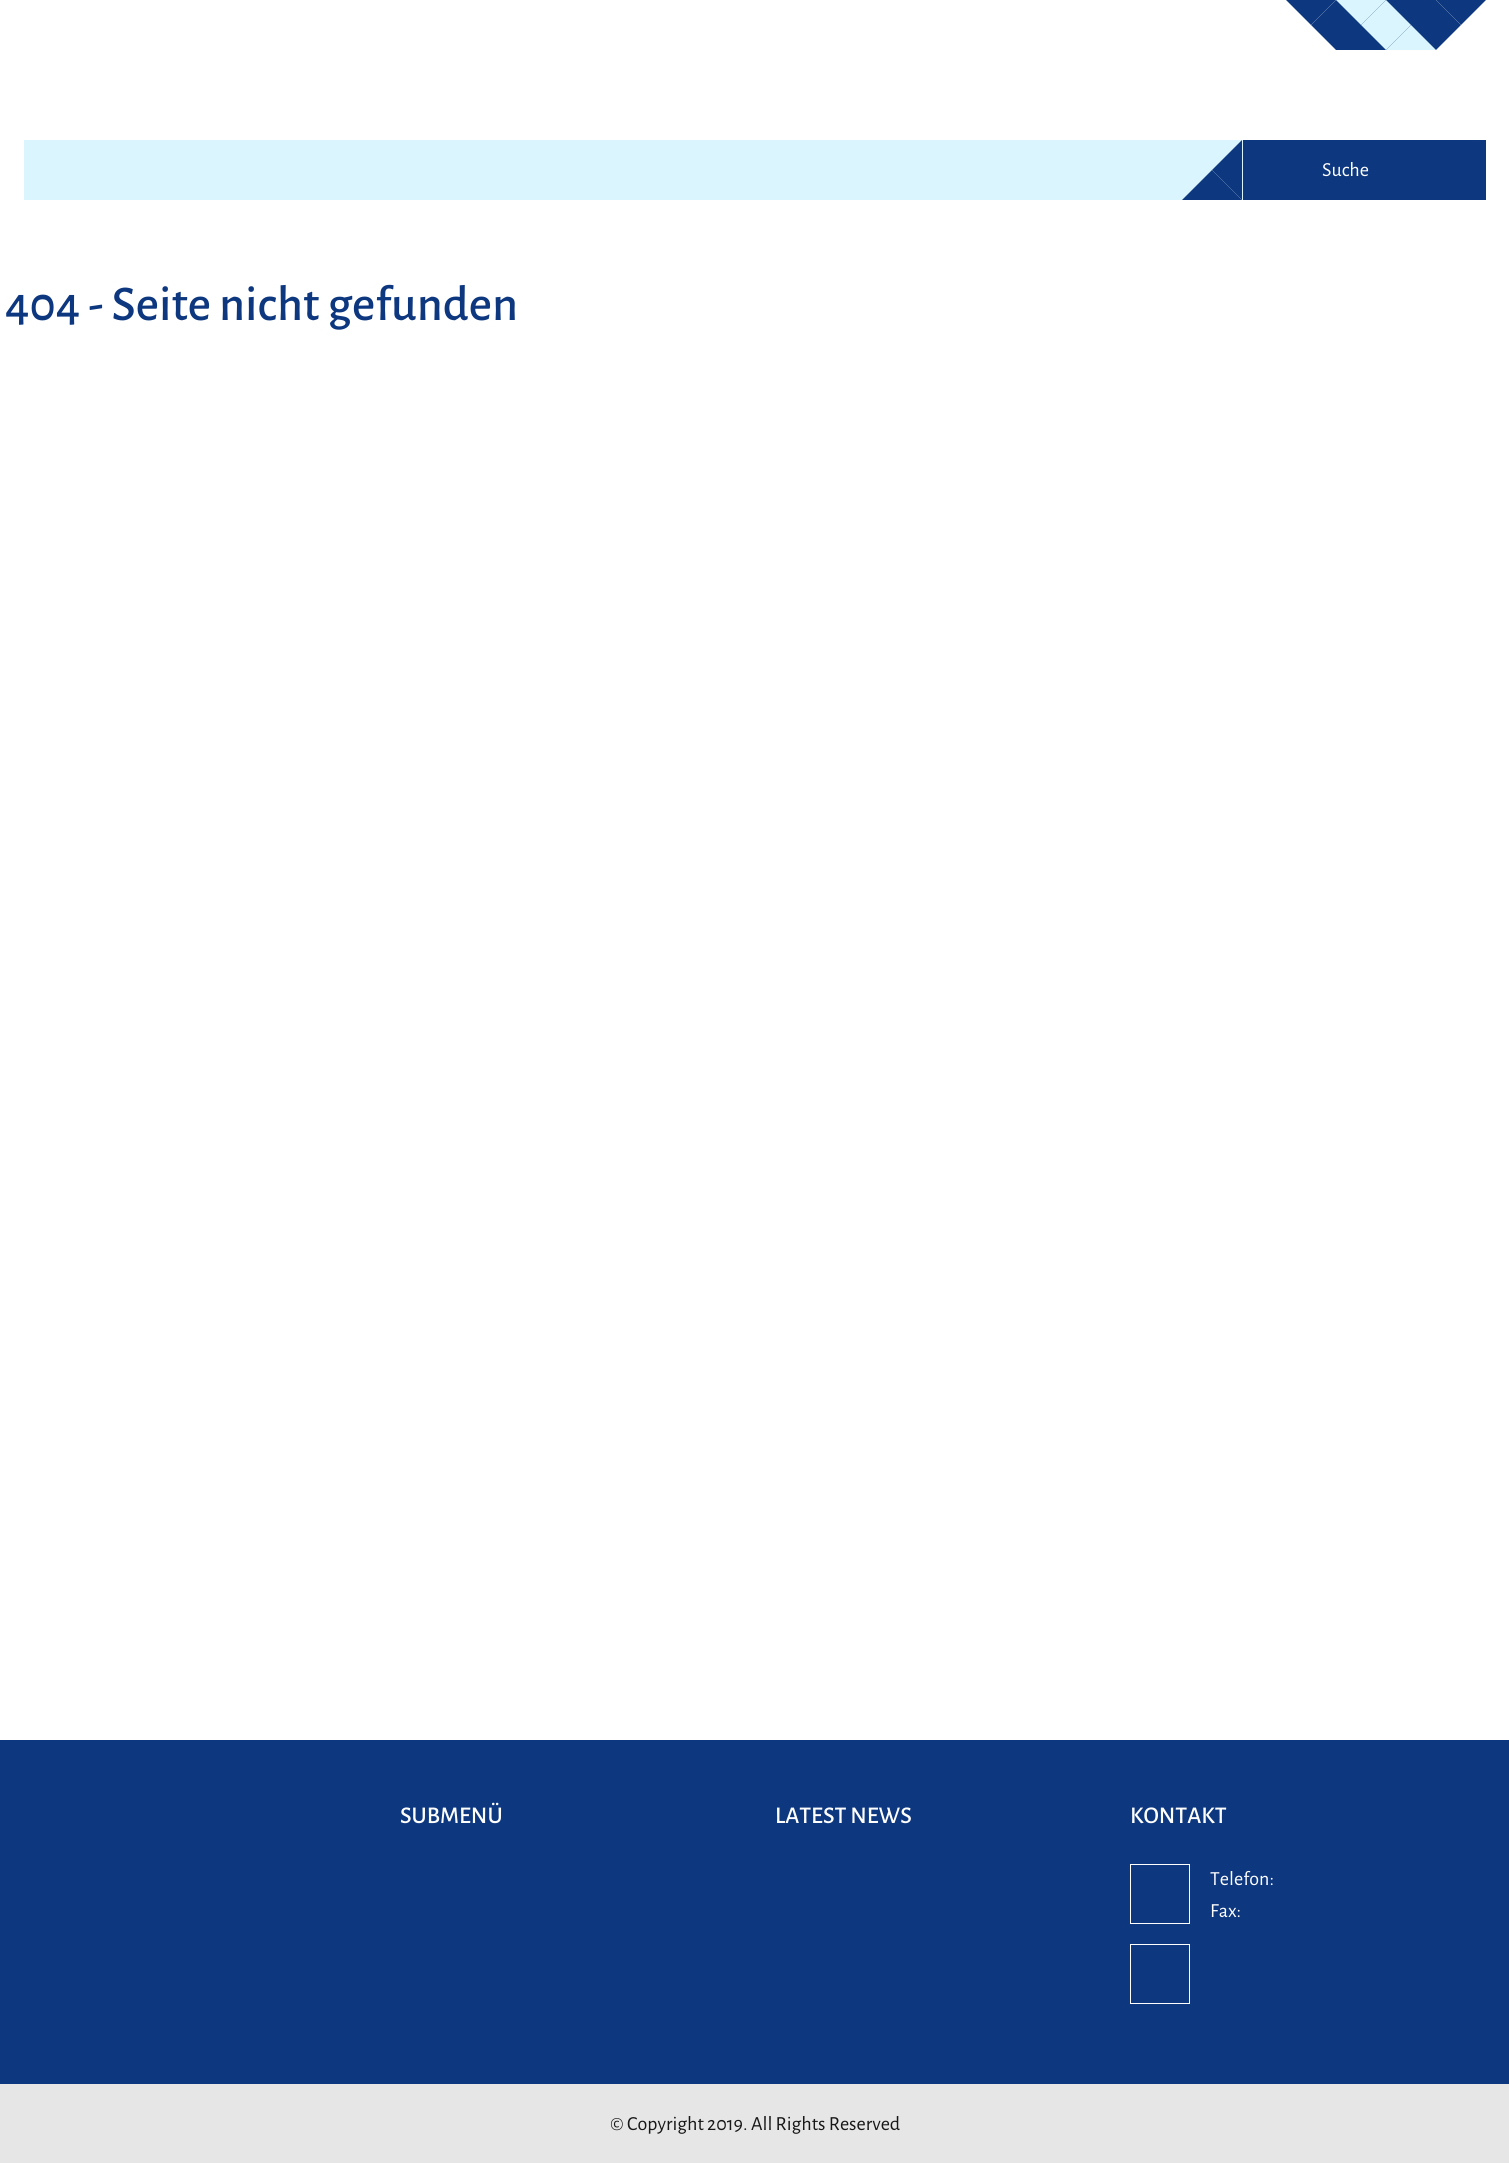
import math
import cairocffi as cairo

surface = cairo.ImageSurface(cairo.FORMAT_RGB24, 1509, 2163)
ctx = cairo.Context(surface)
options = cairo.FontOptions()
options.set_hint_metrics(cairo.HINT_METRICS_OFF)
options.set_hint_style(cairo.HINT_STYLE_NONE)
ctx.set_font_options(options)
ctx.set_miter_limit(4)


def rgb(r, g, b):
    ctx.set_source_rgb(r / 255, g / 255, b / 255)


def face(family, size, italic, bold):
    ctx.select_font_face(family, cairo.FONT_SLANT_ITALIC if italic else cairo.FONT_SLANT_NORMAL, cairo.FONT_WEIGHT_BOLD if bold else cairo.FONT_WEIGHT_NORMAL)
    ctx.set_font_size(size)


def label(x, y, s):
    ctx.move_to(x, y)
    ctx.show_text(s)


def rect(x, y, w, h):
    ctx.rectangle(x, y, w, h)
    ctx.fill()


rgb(255, 255, 255)
ctx.paint()
rgb(13, 55, 127)
rect(1336, 0, 100, 50)
ctx.new_path()
ctx.move_to(1286, 0)
ctx.line_to(1336, 0)
ctx.line_to(1311, 25)
ctx.close_path()
ctx.fill()
ctx.new_path()
ctx.move_to(1336, 0)
ctx.line_to(1336, 50)
ctx.line_to(1311, 25)
ctx.close_path()
ctx.fill()
rgb(218, 245, 254)
ctx.new_path()
ctx.move_to(1336, 0)
ctx.line_to(1386, 0)
ctx.line_to(1361, 25)
ctx.close_path()
ctx.fill()
ctx.new_path()
ctx.move_to(1386, 0)
ctx.line_to(1386, 50)
ctx.line_to(1361, 25)
ctx.close_path()
ctx.fill()
ctx.new_path()
ctx.move_to(1436, 50)
ctx.line_to(1386, 50)
ctx.line_to(1411, 25)
ctx.close_path()
ctx.fill()
ctx.new_path()
ctx.move_to(1386, 50)
ctx.line_to(1386, 0)
ctx.line_to(1411, 25)
ctx.close_path()
ctx.fill()
rgb(13, 55, 127)
ctx.new_path()
ctx.move_to(1436, 0)
ctx.line_to(1486, 0)
ctx.line_to(1461, 25)
ctx.close_path()
ctx.fill()
ctx.new_path()
ctx.move_to(1436, 50)
ctx.line_to(1436, 0)
ctx.line_to(1461, 25)
ctx.close_path()
ctx.fill()
rgb(218, 245, 254)
rect(24, 140, 1219, 60)
rgb(13, 55, 127)
rect(1243, 140, 243, 60)
ctx.new_path()
ctx.move_to(1242, 140)
ctx.line_to(1242, 200)
ctx.line_to(1212, 170)
ctx.close_path()
ctx.fill()
ctx.new_path()
ctx.move_to(1242, 200)
ctx.line_to(1182, 200)
ctx.line_to(1212, 170)
ctx.close_path()
ctx.fill()
face('Alegreya Sans', 20, 0, 0)
rgb(254, 254, 254)
label(1322, 176, 'Suche')
face('Alegreya Sans Medium', 50, 0, 0)
rgb(13, 55, 127)
label(5, 320, '404 - Seite nicht gefunden')
rect(0, 1740, 1509, 344)
face('Alegreya Sans Medium', 24, 0, 0)
rgb(254, 254, 254)
label(400, 1823, 'SUBMENÜ')
label(775, 1823, 'LATEST NEWS')
label(1130, 1823, 'KONTAKT')
ctx.rectangle(1130.5, 1864.5, 59, 59)
ctx.set_line_width(1)
ctx.stroke()
face('Alegreya Sans', 20, 0, 0)
label(1210, 1885, 'Telefon:')
label(1210, 1917, 'Fax:')
ctx.rectangle(1130.5, 1944.5, 59, 59)
ctx.stroke()
rgb(230, 230, 230)
rect(0, 2084, 1509, 79)
rgb(23, 23, 23)
label(610, 2130, '© Copyright 2019. All Rights Reserved')
surface.write_to_png('render.png')
